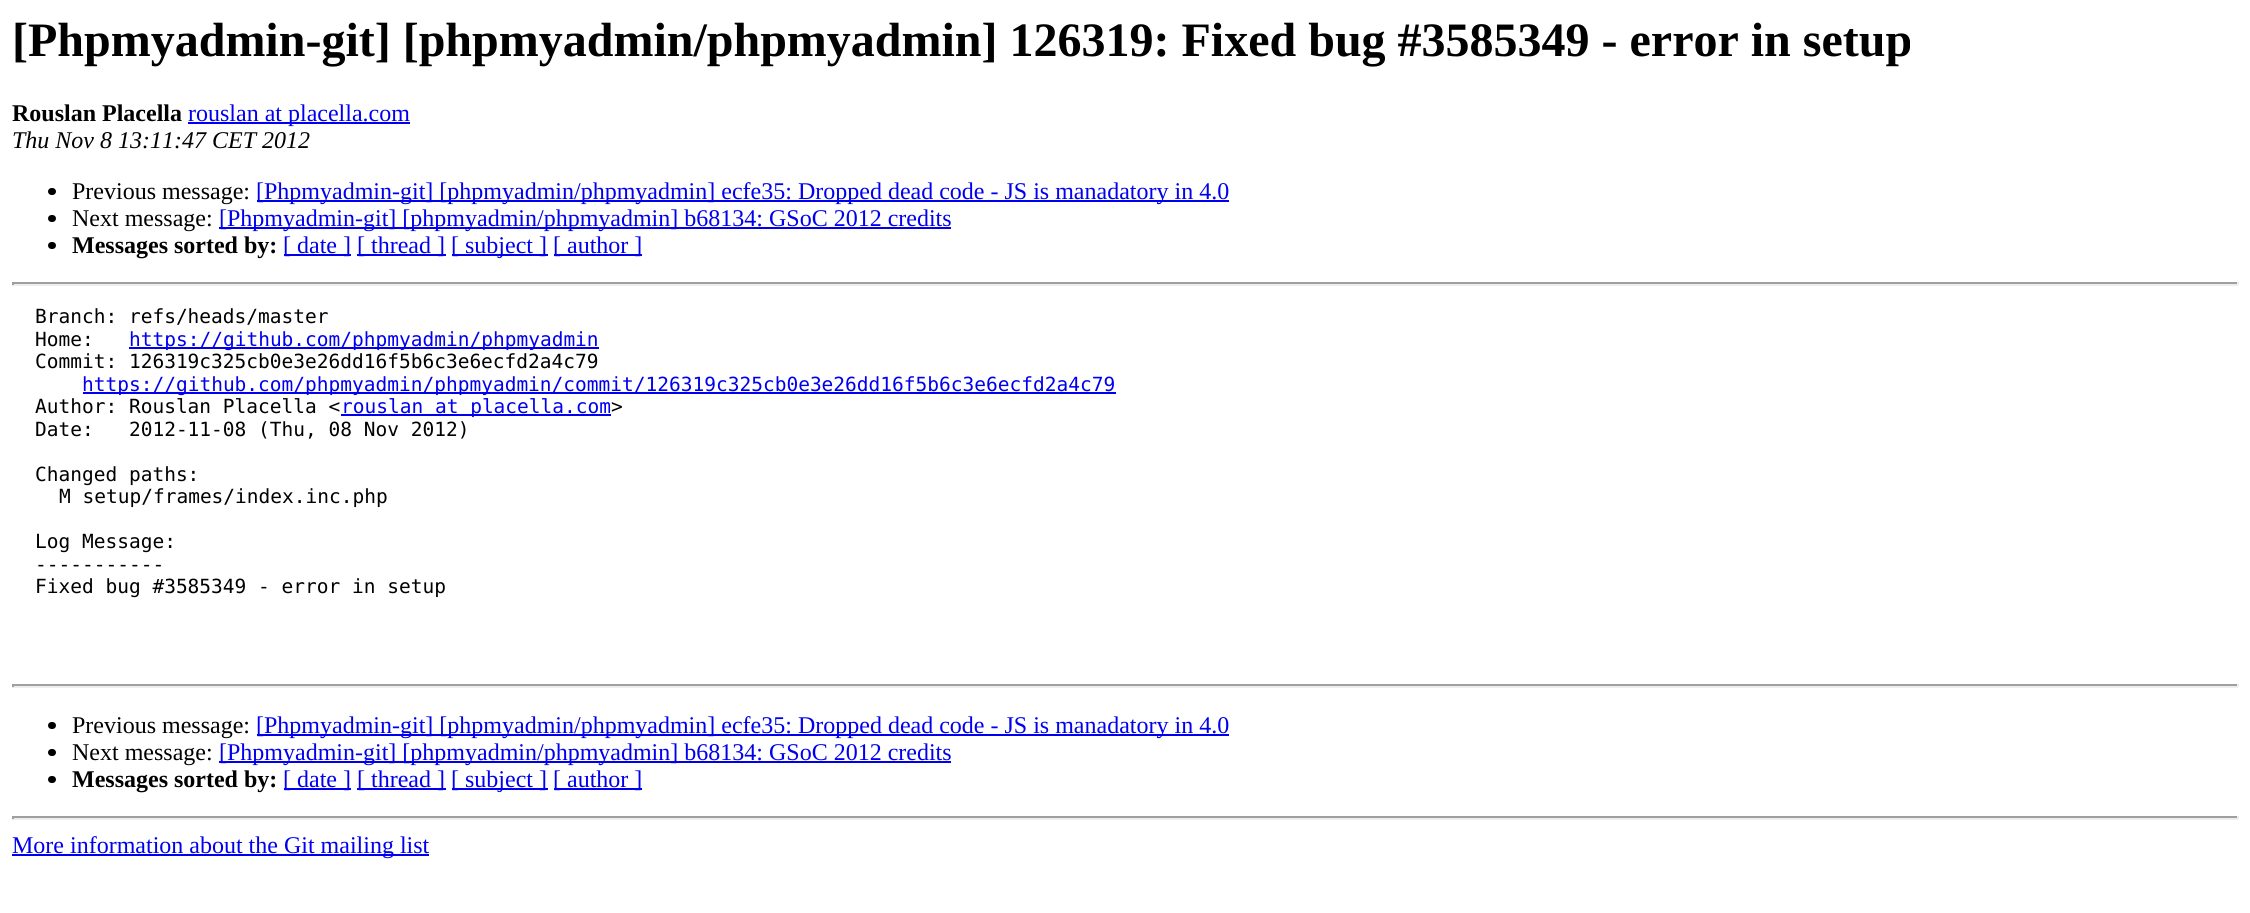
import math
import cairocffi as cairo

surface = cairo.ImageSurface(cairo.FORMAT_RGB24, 2250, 913)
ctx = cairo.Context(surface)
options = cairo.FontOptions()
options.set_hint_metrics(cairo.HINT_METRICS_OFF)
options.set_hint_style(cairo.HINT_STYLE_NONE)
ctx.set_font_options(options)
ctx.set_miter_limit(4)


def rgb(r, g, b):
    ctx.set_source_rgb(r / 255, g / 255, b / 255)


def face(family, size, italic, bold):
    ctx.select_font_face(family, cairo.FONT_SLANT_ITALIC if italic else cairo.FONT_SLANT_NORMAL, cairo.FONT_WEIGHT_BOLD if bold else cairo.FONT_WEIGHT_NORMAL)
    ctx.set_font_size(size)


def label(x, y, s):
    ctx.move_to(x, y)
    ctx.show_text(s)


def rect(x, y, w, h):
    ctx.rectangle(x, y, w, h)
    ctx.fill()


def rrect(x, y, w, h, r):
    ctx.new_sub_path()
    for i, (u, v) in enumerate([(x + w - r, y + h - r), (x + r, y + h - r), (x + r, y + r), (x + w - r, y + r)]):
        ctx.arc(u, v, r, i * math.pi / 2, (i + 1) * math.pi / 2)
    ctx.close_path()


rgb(255, 255, 255)
ctx.paint()
face('Liberation Serif', 48, 0, 1)
rgb(0, 0, 0)
label(12, 56, '[Phpmyadmin-git] [phpmyadmin/phpmyadmin] 126319: Fixed bug #3585349 - error in setup')
face('Liberation Serif', 24, 0, 1)
label(12, 121, 'Rouslan Placella')
rgb(0, 0, 238)
rect(188, 122, 222, 2)
face('Liberation Serif', 24, 0, 0)
label(188, 121, 'rouslan at placella.com')
face('Liberation Serif', 24, 1, 0)
rgb(0, 0, 0)
label(12, 148, 'Thu Nov 8 13:11:47 CET 2012')
rrect(48, 188, 8, 7, 3.5)
ctx.fill()
face('Liberation Serif', 24, 0, 0)
label(72, 199, 'Previous message:')
rgb(0, 0, 238)
rect(257, 200, 972, 2)
label(256, 199, '[Phpmyadmin-git] [phpmyadmin/phpmyadmin] ecfe35: Dropped dead code - JS is manadatory in 4.0')
rgb(0, 0, 0)
rrect(48, 215, 8, 7, 3.5)
ctx.fill()
label(72, 226, 'Next message:')
rgb(0, 0, 238)
rect(219, 227, 732, 2)
label(219, 226, '[Phpmyadmin-git] [phpmyadmin/phpmyadmin] b68134: GSoC 2012 credits')
rgb(0, 0, 0)
rrect(48, 242, 8, 7, 3.5)
ctx.fill()
face('Liberation Serif', 24, 0, 1)
label(72, 253, 'Messages sorted by:')
rgb(0, 0, 238)
rect(284, 254, 67, 2)
face('Liberation Serif', 24, 0, 0)
label(283, 253, '[ date ]')
rect(357, 254, 89, 2)
label(357, 253, '[ thread ]')
rect(452, 254, 96, 2)
label(451, 253, '[ subject ]')
rect(554, 254, 88, 2)
label(553, 253, '[ author ]')
rgb(159, 159, 159)
rect(12, 282, 2226, 2)
rgb(238, 238, 238)
rect(2237, 282, 2, 3)
rect(12, 284, 2226, 2)
rgb(159, 159, 159)
rect(12, 282, 2, 3)
face('DejaVu Sans Mono', 19.5, 0, 0)
rgb(0, 0, 0)
label(35, 323, 'Branch: refs/heads/master')
label(35, 346, 'Home:')
rgb(0, 0, 238)
rect(129, 347, 470, 2)
label(129, 346, 'https://github.com/phpmyadmin/phpmyadmin')
rgb(0, 0, 0)
label(35, 368, 'Commit: 126319c325cb0e3e26dd16f5b6c3e6ecfd2a4c79')
rgb(0, 0, 238)
rect(83, 392, 1033, 2)
label(82, 391, 'https://github.com/phpmyadmin/phpmyadmin/commit/126319c325cb0e3e26dd16f5b6c3e6ecfd2a4c79')
rgb(0, 0, 0)
label(35, 413, 'Author: Rouslan Placella <')
rgb(0, 0, 238)
rect(341, 414, 270, 2)
label(341, 413, 'rouslan at placella.com')
rgb(0, 0, 0)
label(611, 413, '>')
label(35, 436, 'Date:   2012-11-08 (Thu, 08 Nov 2012)')
label(35, 481, 'Changed paths:')
label(59, 503, 'M setup/frames/index.inc.php')
label(35, 548, 'Log Message:')
label(35, 571, '-----------')
label(35, 593, 'Fixed bug #3585349 - error in setup')
rgb(159, 159, 159)
rect(12, 684, 2226, 2)
rgb(238, 238, 238)
rect(2237, 684, 2, 3)
rect(12, 686, 2226, 2)
rgb(159, 159, 159)
rect(12, 684, 2, 3)
rgb(0, 0, 0)
rrect(48, 722, 8, 7, 3.5)
ctx.fill()
face('Liberation Serif', 24, 0, 0)
label(72, 733, 'Previous message:')
rgb(0, 0, 238)
rect(257, 734, 972, 2)
label(256, 733, '[Phpmyadmin-git] [phpmyadmin/phpmyadmin] ecfe35: Dropped dead code - JS is manadatory in 4.0')
rgb(0, 0, 0)
rrect(48, 749, 8, 7, 3.5)
ctx.fill()
label(72, 760, 'Next message:')
rgb(0, 0, 238)
rect(219, 761, 732, 2)
label(219, 760, '[Phpmyadmin-git] [phpmyadmin/phpmyadmin] b68134: GSoC 2012 credits')
rgb(0, 0, 0)
rrect(48, 776, 8, 7, 3.5)
ctx.fill()
face('Liberation Serif', 24, 0, 1)
label(72, 787, 'Messages sorted by:')
rgb(0, 0, 238)
rect(284, 788, 67, 2)
face('Liberation Serif', 24, 0, 0)
label(283, 787, '[ date ]')
rect(357, 788, 89, 2)
label(357, 787, '[ thread ]')
rect(452, 788, 96, 2)
label(451, 787, '[ subject ]')
rect(554, 788, 88, 2)
label(553, 787, '[ author ]')
rgb(159, 159, 159)
rect(12, 816, 2226, 2)
rgb(238, 238, 238)
rect(2237, 816, 2, 3)
rect(12, 818, 2226, 2)
rgb(159, 159, 159)
rect(12, 816, 2, 3)
rgb(0, 0, 238)
rect(12, 854, 417, 2)
label(12, 853, 'More information about the Git mailing list')
surface.write_to_png('render.png')
